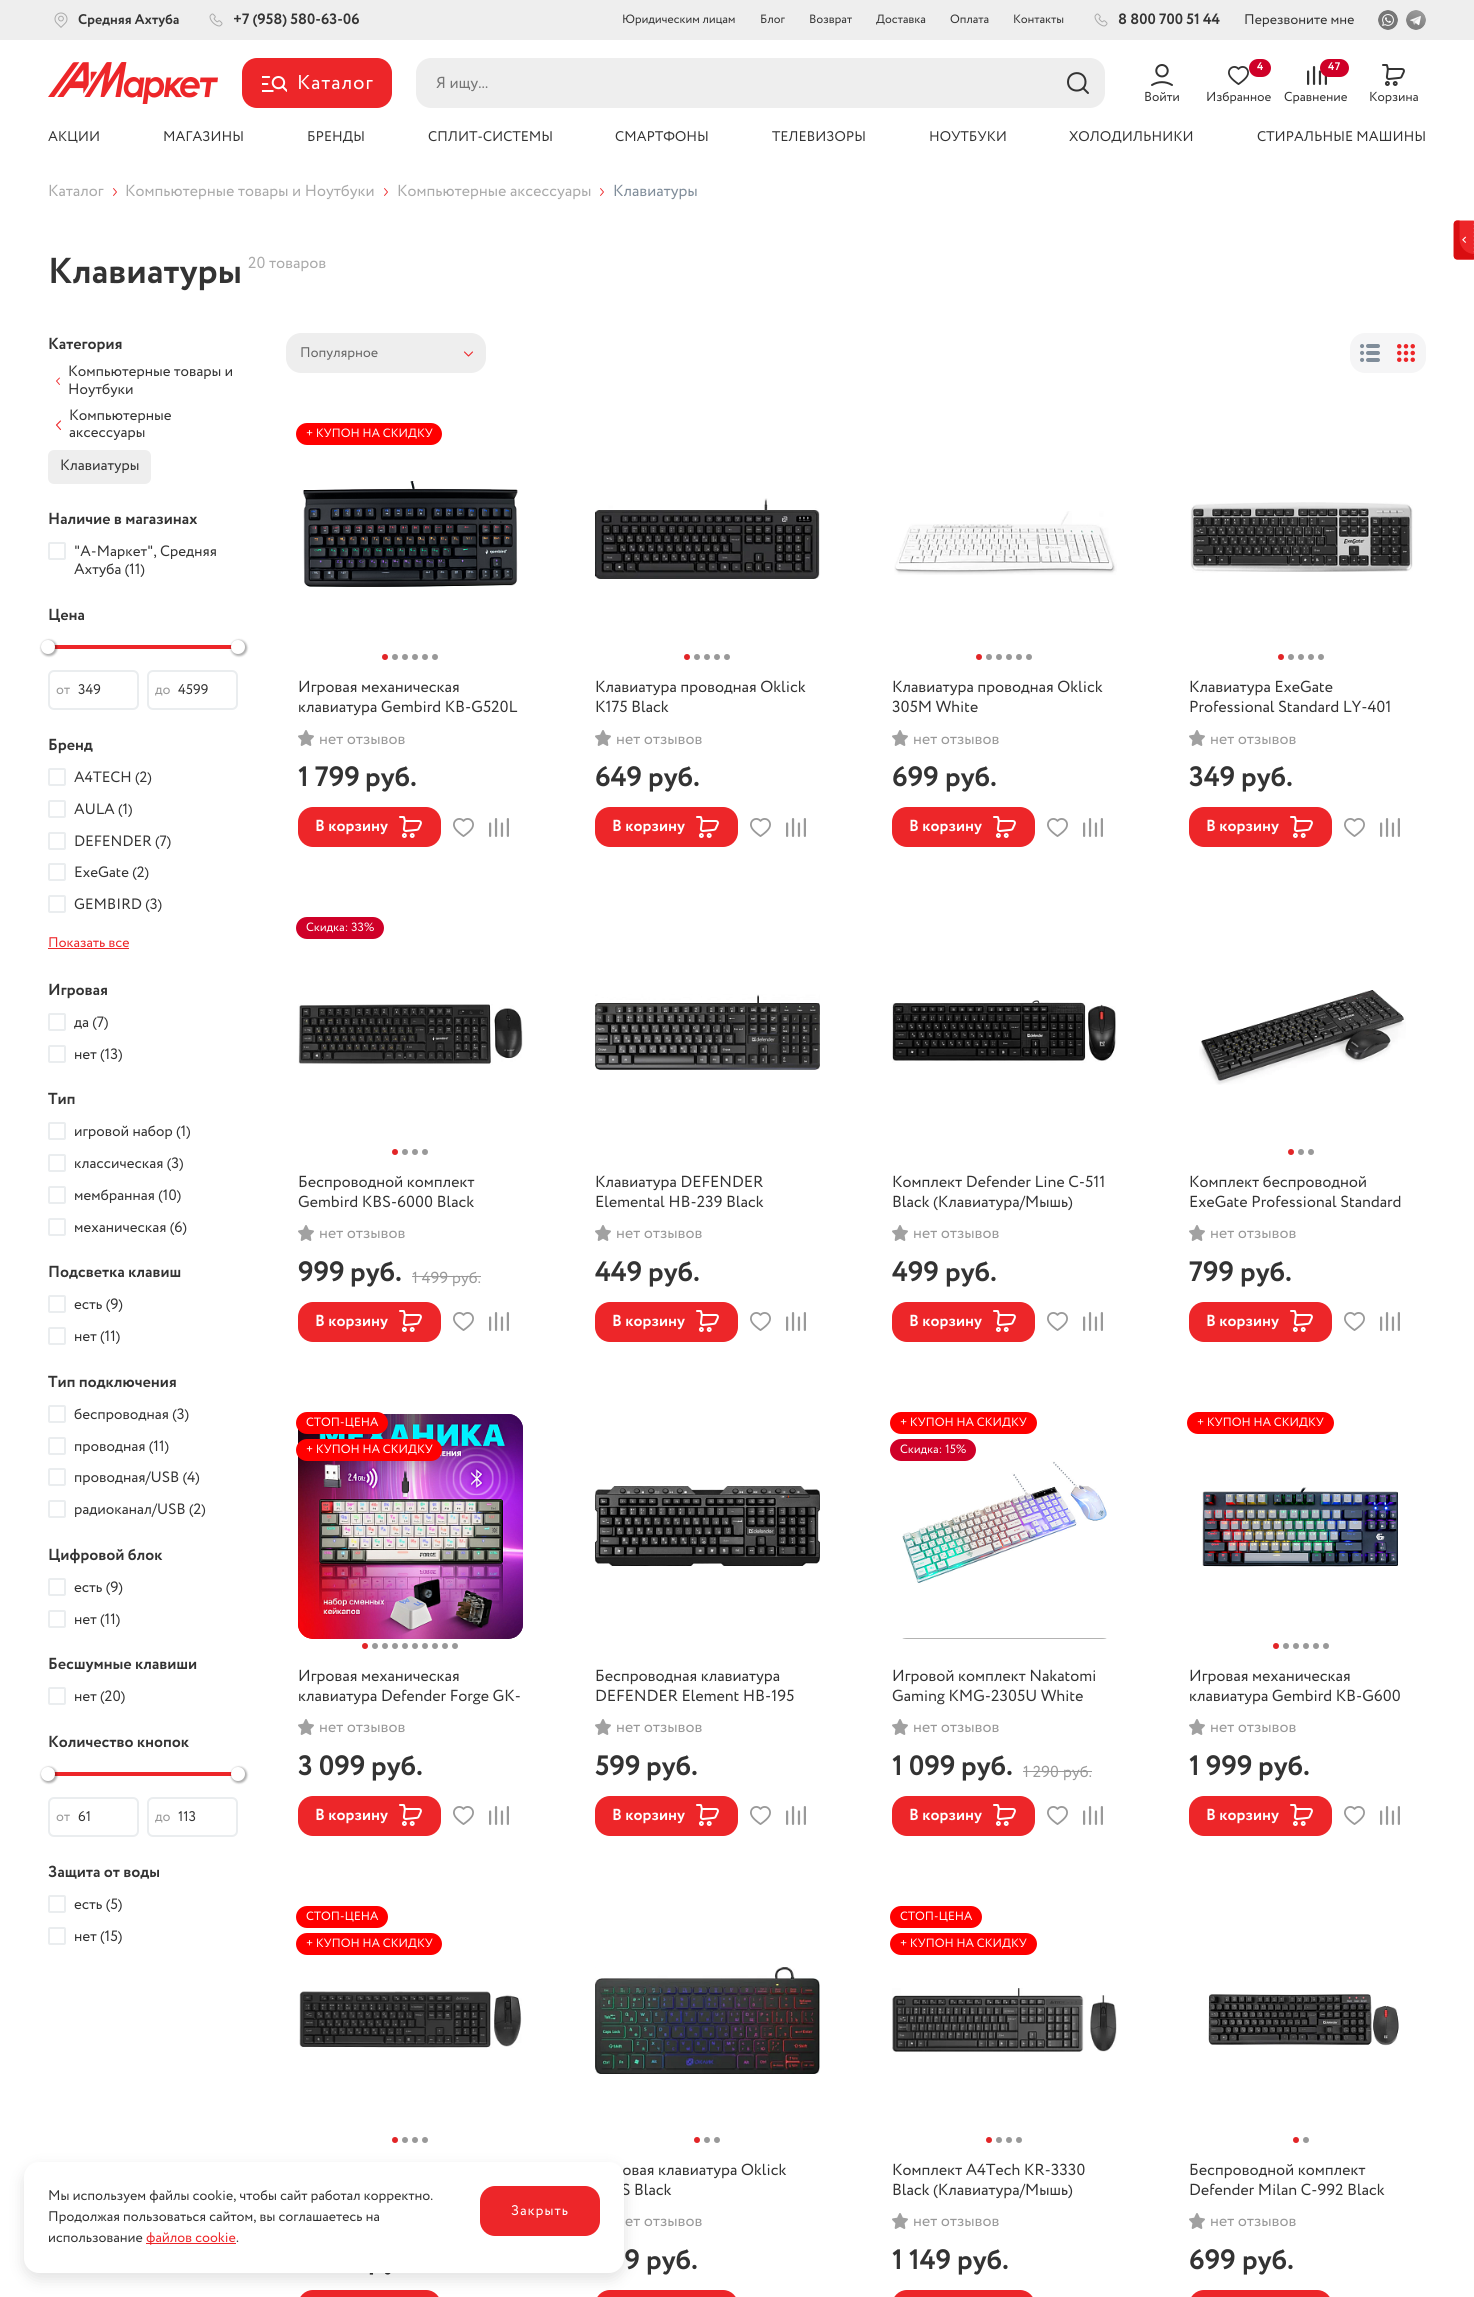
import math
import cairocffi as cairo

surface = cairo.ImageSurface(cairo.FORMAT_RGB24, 1474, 2297)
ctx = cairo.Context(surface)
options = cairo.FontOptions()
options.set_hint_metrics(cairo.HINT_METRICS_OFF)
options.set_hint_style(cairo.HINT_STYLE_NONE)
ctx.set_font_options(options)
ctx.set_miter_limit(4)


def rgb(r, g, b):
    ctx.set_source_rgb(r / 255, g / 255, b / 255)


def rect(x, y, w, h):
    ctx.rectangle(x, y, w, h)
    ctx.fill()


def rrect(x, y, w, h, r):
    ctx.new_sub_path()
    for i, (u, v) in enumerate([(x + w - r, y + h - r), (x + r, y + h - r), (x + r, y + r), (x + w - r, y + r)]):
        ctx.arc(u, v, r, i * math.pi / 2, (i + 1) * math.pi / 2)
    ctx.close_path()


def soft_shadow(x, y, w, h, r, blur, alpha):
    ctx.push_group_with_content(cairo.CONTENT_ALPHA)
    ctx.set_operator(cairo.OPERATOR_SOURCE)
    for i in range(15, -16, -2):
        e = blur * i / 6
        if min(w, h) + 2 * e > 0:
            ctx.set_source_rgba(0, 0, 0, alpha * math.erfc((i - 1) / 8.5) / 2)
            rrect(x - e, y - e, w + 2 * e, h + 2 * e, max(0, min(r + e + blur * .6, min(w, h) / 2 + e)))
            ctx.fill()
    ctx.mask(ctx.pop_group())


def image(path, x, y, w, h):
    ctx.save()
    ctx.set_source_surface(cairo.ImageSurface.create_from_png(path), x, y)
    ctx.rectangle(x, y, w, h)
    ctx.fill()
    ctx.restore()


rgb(255, 255, 255)
ctx.paint()
rgb(238, 238, 238)
rect(0, 0, 1474, 40)
image('image0.png', 54, 12, 14, 16)
image('image1.png', 78, 14, 101, 13)
image('image2.png', 209, 13, 14, 14)
image('image3.png', 234, 13, 125, 14)
image('image4.png', 623, 14, 112, 12)
image('image5.png', 761, 14, 24, 10)
image('image6.png', 810, 14, 42, 12)
image('image7.png', 876, 14, 50, 11)
image('image8.png', 950, 14, 39, 10)
image('image9.png', 1014, 14, 50, 10)
image('image2.png', 1094, 13, 14, 14)
image('image10.png', 1118, 13, 102, 12)
image('image11.png', 1245, 14, 109, 13)
image('image12.png', 1378, 10, 20, 20)
image('image13.png', 1406, 10, 20, 20)
image('image14.png', 48, 62, 170, 42)
rgb(237, 38, 41)
rrect(242, 58, 150, 50, 15)
ctx.fill()
image('image15.png', 262, 76, 25, 16)
image('image16.png', 299, 75, 74, 15)
rgb(238, 238, 238)
rrect(416, 58, 689, 50, 15)
ctx.fill()
image('image17.png', 436, 76, 52, 16)
ctx.new_path()
ctx.move_to(1068, 82)
ctx.curve_to(1068, 70.5, 1085, 70, 1085.5, 81.5)
ctx.curve_to(1086, 93.5, 1068, 93.5, 1068, 82)
ctx.close_path()
ctx.move_to(1083, 88)
ctx.line_to(1088, 93)
rgb(51, 51, 51)
ctx.set_line_cap(cairo.LINE_CAP_ROUND)
ctx.set_line_join(cairo.LINE_JOIN_ROUND)
ctx.stroke()
image('image18.png', 1151, 64, 22, 22)
image('image19.png', 1145, 91, 34, 11)
rgb(207, 0, 40)
rrect(1249, 59, 22, 18, 9)
ctx.fill()
image('image20.png', 1257, 62, 6, 8)
image('image21.png', 1228, 66, 21, 19)
image('image22.png', 1207, 91, 64, 13)
image('image24.png', 1307, 66, 20, 19)
rrect(1320, 59, 29, 18, 9)
ctx.fill()
image('image23.png', 1328, 62, 12, 8)
image('image25.png', 1284, 91, 63, 13)
image('image26.png', 1382, 64, 23, 22)
image('image27.png', 1370, 91, 48, 13)
image('image28.png', 48, 131, 51, 12)
image('image29.png', 164, 131, 79, 11)
image('image30.png', 308, 131, 56, 12)
image('image31.png', 428, 131, 124, 11)
image('image32.png', 615, 131, 93, 11)
image('image33.png', 772, 131, 93, 11)
image('image34.png', 930, 131, 76, 11)
image('image35.png', 1069, 131, 124, 12)
image('image36.png', 1257, 131, 168, 11)
image('image37.png', 49, 184, 55, 13)
ctx.new_path()
ctx.move_to(113.5, 188.5)
ctx.line_to(116.5, 192)
ctx.line_to(113.5, 195.5)
rgb(237, 38, 41)
ctx.set_line_width(0.9)
ctx.stroke()
image('image38.png', 126, 184, 248, 16)
ctx.new_path()
ctx.move_to(384.5, 188.5)
ctx.line_to(387.5, 192)
ctx.line_to(384.5, 195.5)
ctx.stroke()
image('image39.png', 398, 184, 193, 16)
ctx.new_path()
ctx.move_to(600.5, 188.5)
ctx.line_to(603.5, 192)
ctx.line_to(600.5, 195.5)
ctx.stroke()
image('image40.png', 614, 184, 83, 16)
image('image41.png', 51, 257, 189, 34)
image('image42.png', 248, 256, 78, 16)
image('image43.png', 49, 337, 73, 16)
ctx.new_path()
ctx.move_to(59.5, 384.5)
ctx.line_to(56.5, 381)
ctx.line_to(59.5, 378)
ctx.stroke()
image('image44.png', 69, 365, 163, 14)
image('image45.png', 69, 383, 64, 14)
ctx.new_path()
ctx.move_to(60.5, 429.5)
ctx.line_to(56.5, 425)
ctx.line_to(60.5, 421)
ctx.set_line_width(1.1)
ctx.stroke()
image('image46.png', 70, 409, 101, 14)
image('image47.png', 69, 430, 76, 10)
rgb(238, 238, 238)
rrect(48, 450, 103, 34, 6)
ctx.fill()
image('image48.png', 61, 459, 78, 14)
image('image49.png', 49, 512, 148, 13)
rrect(49, 543, 16, 16, 1)
rgb(234, 237, 239)
ctx.set_line_width(2)
ctx.set_line_cap(cairo.LINE_CAP_BUTT)
ctx.set_line_join(cairo.LINE_JOIN_MITER)
ctx.stroke()
image('image50.png', 75, 545, 141, 14)
image('image51.png', 74, 563, 71, 14)
image('image52.png', 49, 608, 35, 14)
rgb(237, 38, 41)
rect(48, 645, 190, 4)
rgb(0, 0, 0)
soft_shadow(41, 640, 16, 16, 8, 1, 0.32)
rgb(255, 255, 255)
ctx.arc(48, 647, 7, 0, 2 * math.pi)
ctx.fill()
rgb(0, 0, 0)
soft_shadow(231, 640, 16, 16, 8, 1, 0.32)
rgb(255, 255, 255)
ctx.arc(238, 647, 7, 0, 2 * math.pi)
ctx.fill()
rrect(49, 671, 89, 38, 5)
rgb(234, 237, 239)
ctx.stroke()
image('image53.png', 56, 687, 14, 8)
image('image54.png', 78, 684, 23, 11)
rrect(148, 671, 89, 38, 5)
ctx.stroke()
image('image55.png', 155, 687, 15, 9)
image('image56.png', 178, 684, 30, 11)
image('image57.png', 49, 738, 44, 16)
rrect(49, 769, 16, 16, 1)
ctx.stroke()
image('image58.png', 74, 771, 78, 14)
rrect(49, 801, 16, 16, 1)
ctx.stroke()
image('image59.png', 74, 803, 58, 14)
rrect(49, 833, 16, 16, 1)
ctx.stroke()
image('image60.png', 75, 835, 96, 14)
rrect(49, 864, 16, 16, 1)
ctx.stroke()
image('image61.png', 75, 866, 74, 14)
rrect(49, 896, 16, 16, 1)
ctx.stroke()
image('image62.png', 74, 898, 88, 14)
image('image63.png', 49, 937, 80, 11)
rgb(237, 38, 41)
rect(48, 948, 81, 1)
image('image64.png', 49, 983, 58, 16)
rrect(49, 1014, 16, 16, 1)
rgb(234, 237, 239)
ctx.stroke()
image('image65.png', 74, 1016, 34, 14)
rrect(49, 1046, 16, 16, 1)
ctx.stroke()
image('image66.png', 75, 1048, 47, 14)
image('image67.png', 48, 1092, 27, 12)
rrect(49, 1123, 16, 16, 1)
ctx.stroke()
image('image68.png', 75, 1125, 115, 14)
rrect(49, 1155, 16, 16, 1)
ctx.stroke()
image('image69.png', 75, 1157, 108, 14)
rrect(49, 1187, 16, 16, 1)
ctx.stroke()
image('image70.png', 75, 1189, 106, 14)
rrect(49, 1219, 16, 16, 1)
ctx.stroke()
image('image71.png', 75, 1221, 112, 14)
image('image72.png', 49, 1265, 132, 14)
rrect(49, 1296, 16, 16, 1)
ctx.stroke()
image('image73.png', 74, 1298, 49, 14)
rrect(49, 1328, 16, 16, 1)
ctx.stroke()
image('image74.png', 75, 1330, 45, 14)
image('image75.png', 48, 1375, 128, 14)
rrect(49, 1406, 16, 16, 1)
ctx.stroke()
image('image76.png', 74, 1408, 115, 14)
rrect(49, 1438, 16, 16, 1)
ctx.stroke()
image('image77.png', 75, 1440, 94, 14)
rrect(49, 1469, 16, 16, 1)
ctx.stroke()
image('image78.png', 75, 1471, 125, 14)
rrect(49, 1501, 16, 16, 1)
ctx.stroke()
image('image79.png', 75, 1503, 131, 15)
image('image80.png', 49, 1548, 114, 16)
rrect(49, 1579, 16, 16, 1)
ctx.stroke()
image('image73.png', 74, 1581, 49, 14)
rrect(49, 1611, 16, 16, 1)
ctx.stroke()
image('image74.png', 75, 1613, 45, 14)
image('image81.png', 49, 1657, 148, 16)
rrect(49, 1688, 16, 16, 1)
ctx.stroke()
image('image82.png', 75, 1690, 50, 14)
image('image83.png', 49, 1735, 140, 13)
rgb(237, 38, 41)
rect(48, 1772, 190, 4)
rgb(0, 0, 0)
soft_shadow(41, 1767, 16, 16, 8, 1, 0.32)
rgb(255, 255, 255)
ctx.arc(48, 1774, 7, 0, 2 * math.pi)
ctx.fill()
rgb(0, 0, 0)
soft_shadow(231, 1767, 16, 16, 8, 1, 0.32)
rgb(255, 255, 255)
ctx.arc(238, 1774, 7, 0, 2 * math.pi)
ctx.fill()
rrect(49, 1798, 89, 38, 5)
rgb(234, 237, 239)
ctx.stroke()
image('image53.png', 56, 1814, 14, 8)
image('image84.png', 78, 1811, 12, 11)
rrect(148, 1798, 89, 38, 5)
ctx.stroke()
image('image55.png', 155, 1814, 15, 9)
image('image85.png', 178, 1811, 18, 11)
image('image86.png', 48, 1865, 111, 14)
rrect(49, 1896, 16, 16, 1)
ctx.stroke()
image('image87.png', 74, 1898, 48, 14)
rrect(49, 1928, 16, 16, 1)
ctx.stroke()
image('image88.png', 75, 1930, 47, 14)
rgb(238, 238, 238)
rrect(286, 333, 200, 40, 15)
ctx.fill()
image('image89.png', 301, 347, 77, 13)
ctx.new_path()
ctx.move_to(472.5, 352)
ctx.line_to(468.5, 356)
ctx.line_to(464.5, 352)
rgb(237, 38, 41)
ctx.set_line_width(1.1)
ctx.set_line_cap(cairo.LINE_CAP_ROUND)
ctx.set_line_join(cairo.LINE_JOIN_ROUND)
ctx.stroke()
rgb(245, 245, 246)
rrect(1350, 333, 76, 40, 15)
ctx.fill()
image('image90.png', 1360, 344, 20, 18)
image('image91.png', 1397, 344, 18, 18)
rgb(255, 0, 0)
rrect(296, 423, 146, 22, 11)
ctx.fill()
image('image92.png', 306, 428, 127, 11)
image('image93.png', 302, 481, 216, 107)
image('image94.png', 303, 482, 215, 106)
rgb(226, 37, 39)
ctx.arc(385, 657, 3, 0, 2 * math.pi)
ctx.fill()
rgb(153, 153, 153)
ctx.arc(395, 657, 3, 0, 2 * math.pi)
ctx.fill()
ctx.arc(405, 657, 3, 0, 2 * math.pi)
ctx.fill()
ctx.arc(415, 657, 3, 0, 2 * math.pi)
ctx.fill()
ctx.arc(425, 657, 3, 0, 2 * math.pi)
ctx.fill()
ctx.arc(435, 657, 3, 0, 2 * math.pi)
ctx.fill()
image('image95.png', 299, 680, 160, 16)
image('image96.png', 299, 700, 219, 16)
image('image97.png', 298, 730, 16, 16)
image('image98.png', 320, 736, 85, 9)
image('image99.png', 298, 766, 61, 21)
image('image100.png', 366, 766, 50, 26)
rgb(237, 38, 41)
rrect(298, 807, 143, 40, 15)
ctx.fill()
image('image101.png', 316, 819, 72, 16)
image('image102.png', 399, 816, 23, 22)
image('image103.png', 453, 818, 21, 19)
image('image104.png', 489, 818, 20, 19)
image('image105.png', 595, 498, 225, 2)
image('image106.png', 595, 500, 225, 79)
rgb(226, 37, 39)
ctx.arc(687, 657, 3, 0, 2 * math.pi)
ctx.fill()
rgb(153, 153, 153)
ctx.arc(697, 657, 3, 0, 2 * math.pi)
ctx.fill()
ctx.arc(707, 657, 3, 0, 2 * math.pi)
ctx.fill()
ctx.arc(717, 657, 3, 0, 2 * math.pi)
ctx.fill()
ctx.arc(727, 657, 3, 0, 2 * math.pi)
ctx.fill()
image('image107.png', 596, 680, 210, 16)
image('image108.png', 596, 700, 73, 13)
image('image97.png', 595, 730, 16, 16)
image('image98.png', 617, 736, 85, 9)
image('image109.png', 596, 766, 45, 21)
image('image100.png', 649, 766, 50, 26)
rgb(237, 38, 41)
rrect(595, 807, 143, 40, 15)
ctx.fill()
image('image101.png', 613, 819, 72, 16)
image('image102.png', 696, 816, 23, 22)
image('image103.png', 750, 818, 21, 19)
image('image104.png', 786, 818, 20, 19)
image('image110.png', 894, 511, 222, 64)
image('image111.png', 896, 513, 221, 59)
rgb(226, 37, 39)
ctx.arc(979, 657, 3, 0, 2 * math.pi)
ctx.fill()
rgb(153, 153, 153)
ctx.arc(989, 657, 3, 0, 2 * math.pi)
ctx.fill()
ctx.arc(999, 657, 3, 0, 2 * math.pi)
ctx.fill()
ctx.arc(1009, 657, 3, 0, 2 * math.pi)
ctx.fill()
ctx.arc(1019, 657, 3, 0, 2 * math.pi)
ctx.fill()
ctx.arc(1029, 657, 3, 0, 2 * math.pi)
ctx.fill()
image('image107.png', 893, 680, 210, 16)
image('image112.png', 892, 700, 86, 13)
image('image97.png', 892, 730, 16, 16)
image('image98.png', 914, 736, 85, 9)
image('image113.png', 893, 766, 45, 21)
image('image100.png', 946, 766, 50, 26)
rgb(237, 38, 41)
rrect(892, 807, 143, 40, 15)
ctx.fill()
image('image101.png', 910, 819, 72, 16)
image('image102.png', 993, 816, 23, 22)
image('image103.png', 1047, 818, 21, 19)
image('image104.png', 1083, 818, 20, 19)
image('image114.png', 1190, 502, 223, 71)
image('image115.png', 1192, 506, 220, 67)
rgb(226, 37, 39)
ctx.arc(1281, 657, 3, 0, 2 * math.pi)
ctx.fill()
rgb(153, 153, 153)
ctx.arc(1291, 657, 3, 0, 2 * math.pi)
ctx.fill()
ctx.arc(1301, 657, 3, 0, 2 * math.pi)
ctx.fill()
ctx.arc(1311, 657, 3, 0, 2 * math.pi)
ctx.fill()
ctx.arc(1321, 657, 3, 0, 2 * math.pi)
ctx.fill()
image('image116.png', 1190, 680, 143, 16)
image('image117.png', 1190, 700, 200, 13)
image('image97.png', 1189, 730, 16, 16)
image('image98.png', 1211, 736, 85, 9)
image('image118.png', 1189, 766, 45, 21)
image('image100.png', 1242, 766, 50, 26)
rgb(237, 38, 41)
rrect(1189, 807, 143, 40, 15)
ctx.fill()
image('image101.png', 1207, 819, 72, 16)
image('image102.png', 1290, 816, 23, 22)
image('image103.png', 1344, 818, 21, 19)
image('image104.png', 1380, 818, 20, 19)
rgb(207, 0, 40)
rrect(296, 917, 88, 22, 11)
ctx.fill()
image('image119.png', 306, 922, 68, 11)
image('image120.png', 298, 1004, 1, 61)
image('image121.png', 299, 1004, 224, 61)
rgb(226, 37, 39)
ctx.arc(395, 1152, 3, 0, 2 * math.pi)
ctx.fill()
rgb(153, 153, 153)
ctx.arc(405, 1152, 3, 0, 2 * math.pi)
ctx.fill()
ctx.arc(415, 1152, 3, 0, 2 * math.pi)
ctx.fill()
ctx.arc(425, 1152, 3, 0, 2 * math.pi)
ctx.fill()
image('image122.png', 299, 1175, 176, 16)
image('image123.png', 298, 1195, 176, 13)
image('image97.png', 298, 1225, 16, 16)
image('image98.png', 320, 1230, 85, 9)
image('image124.png', 298, 1261, 46, 21)
image('image100.png', 351, 1261, 50, 26)
image('image125.png', 412, 1271, 36, 13)
image('image126.png', 453, 1271, 28, 16)
rect(412, 1276, 40, 1)
rect(452, 1276, 29, 1)
rgb(237, 38, 41)
rrect(298, 1302, 143, 40, 15)
ctx.fill()
image('image101.png', 316, 1314, 72, 16)
image('image102.png', 399, 1310, 23, 22)
image('image103.png', 453, 1312, 21, 19)
image('image104.png', 489, 1312, 20, 19)
image('image127.png', 595, 994, 225, 1)
image('image128.png', 595, 995, 225, 75)
image('image129.png', 596, 1175, 167, 16)
image('image130.png', 596, 1195, 168, 13)
image('image97.png', 595, 1225, 16, 16)
image('image98.png', 617, 1230, 85, 9)
image('image131.png', 595, 1261, 46, 21)
image('image100.png', 649, 1261, 50, 26)
rrect(595, 1302, 143, 40, 15)
ctx.fill()
image('image101.png', 613, 1314, 72, 16)
image('image102.png', 696, 1310, 23, 22)
image('image103.png', 750, 1312, 21, 19)
image('image104.png', 786, 1312, 20, 19)
image('image132.png', 892, 1000, 225, 63)
image('image133.png', 893, 1175, 211, 13)
image('image134.png', 893, 1195, 180, 16)
image('image97.png', 892, 1225, 16, 16)
image('image98.png', 914, 1230, 85, 9)
image('image135.png', 892, 1261, 46, 21)
image('image100.png', 946, 1261, 50, 26)
rrect(892, 1302, 143, 40, 15)
ctx.fill()
image('image101.png', 910, 1314, 72, 16)
image('image102.png', 993, 1310, 23, 22)
image('image103.png', 1047, 1312, 21, 19)
image('image104.png', 1083, 1312, 20, 19)
image('image136.png', 1199, 990, 206, 95)
image('image137.png', 1201, 990, 205, 92)
rgb(226, 37, 39)
ctx.arc(1291, 1152, 3, 0, 2 * math.pi)
ctx.fill()
rgb(153, 153, 153)
ctx.arc(1301, 1152, 3, 0, 2 * math.pi)
ctx.fill()
ctx.arc(1311, 1152, 3, 0, 2 * math.pi)
ctx.fill()
image('image138.png', 1190, 1175, 176, 16)
image('image139.png', 1190, 1195, 211, 13)
image('image97.png', 1189, 1225, 16, 16)
image('image98.png', 1211, 1230, 85, 9)
image('image140.png', 1189, 1261, 44, 21)
image('image100.png', 1241, 1261, 50, 26)
rgb(237, 38, 41)
rrect(1189, 1302, 143, 40, 15)
ctx.fill()
image('image101.png', 1207, 1314, 72, 16)
image('image102.png', 1290, 1310, 23, 22)
image('image103.png', 1344, 1312, 21, 19)
image('image104.png', 1380, 1312, 20, 19)
image('image142.png', 298, 1414, 225, 225)
image('image143.png', 298, 1414, 225, 225)
rgb(255, 0, 0)
rrect(296, 1412, 92, 22, 11)
ctx.fill()
image('image141.png', 306, 1417, 73, 11)
rrect(296, 1439, 146, 22, 11)
ctx.fill()
image('image92.png', 306, 1444, 127, 11)
rgb(226, 37, 39)
ctx.arc(365, 1646, 3, 0, 2 * math.pi)
ctx.fill()
rgb(153, 153, 153)
ctx.arc(375, 1646, 3, 0, 2 * math.pi)
ctx.fill()
ctx.arc(385, 1646, 3, 0, 2 * math.pi)
ctx.fill()
ctx.arc(395, 1646, 3, 0, 2 * math.pi)
ctx.fill()
ctx.arc(405, 1646, 3, 0, 2 * math.pi)
ctx.fill()
ctx.arc(415, 1646, 3, 0, 2 * math.pi)
ctx.fill()
ctx.arc(425, 1646, 3, 0, 2 * math.pi)
ctx.fill()
ctx.arc(435, 1646, 3, 0, 2 * math.pi)
ctx.fill()
ctx.arc(445, 1646, 3, 0, 2 * math.pi)
ctx.fill()
ctx.arc(455, 1646, 3, 0, 2 * math.pi)
ctx.fill()
image('image95.png', 299, 1669, 160, 16)
image('image144.png', 299, 1689, 221, 16)
image('image97.png', 298, 1719, 16, 16)
image('image98.png', 320, 1724, 85, 9)
image('image145.png', 298, 1755, 67, 21)
image('image100.png', 372, 1755, 50, 26)
rgb(237, 38, 41)
rrect(298, 1796, 143, 40, 15)
ctx.fill()
image('image101.png', 316, 1808, 72, 16)
image('image102.png', 399, 1804, 23, 22)
image('image103.png', 453, 1806, 21, 19)
image('image104.png', 489, 1806, 20, 19)
image('image146.png', 595, 1486, 225, 80)
image('image147.png', 595, 1486, 225, 80)
image('image148.png', 596, 1669, 184, 16)
image('image149.png', 596, 1689, 198, 13)
image('image97.png', 595, 1719, 16, 16)
image('image98.png', 617, 1724, 85, 9)
image('image150.png', 595, 1755, 45, 21)
image('image100.png', 647, 1755, 50, 26)
rrect(595, 1796, 143, 40, 15)
ctx.fill()
image('image101.png', 613, 1808, 72, 16)
image('image102.png', 696, 1804, 23, 22)
image('image103.png', 750, 1806, 21, 19)
image('image104.png', 786, 1806, 20, 19)
rgb(255, 0, 0)
rrect(890, 1412, 147, 22, 11)
ctx.fill()
image('image92.png', 900, 1417, 127, 11)
rgb(207, 0, 40)
rrect(890, 1439, 86, 22, 11)
ctx.fill()
image('image151.png', 900, 1444, 66, 11)
image('image152.png', 902, 1461, 205, 178)
image('image153.png', 902, 1462, 205, 177)
image('image154.png', 893, 1669, 202, 16)
image('image155.png', 892, 1689, 191, 16)
image('image97.png', 892, 1719, 16, 16)
image('image98.png', 914, 1724, 85, 9)
image('image156.png', 892, 1755, 63, 21)
image('image100.png', 962, 1755, 50, 26)
image('image157.png', 1023, 1765, 35, 13)
image('image126.png', 1064, 1765, 28, 16)
rgb(153, 153, 153)
rect(1023, 1771, 40, 1)
rect(1063, 1771, 29, 1)
rgb(237, 38, 41)
rrect(892, 1796, 143, 40, 15)
ctx.fill()
image('image101.png', 910, 1808, 72, 16)
image('image102.png', 993, 1804, 23, 22)
image('image103.png', 1047, 1806, 21, 19)
image('image104.png', 1083, 1806, 20, 19)
rgb(255, 0, 0)
rrect(1187, 1412, 147, 22, 11)
ctx.fill()
image('image92.png', 1197, 1417, 127, 11)
image('image158.png', 1202, 1487, 197, 80)
rgb(226, 37, 39)
ctx.arc(1276, 1646, 3, 0, 2 * math.pi)
ctx.fill()
rgb(153, 153, 153)
ctx.arc(1286, 1646, 3, 0, 2 * math.pi)
ctx.fill()
ctx.arc(1296, 1646, 3, 0, 2 * math.pi)
ctx.fill()
ctx.arc(1306, 1646, 3, 0, 2 * math.pi)
ctx.fill()
ctx.arc(1316, 1646, 3, 0, 2 * math.pi)
ctx.fill()
ctx.arc(1326, 1646, 3, 0, 2 * math.pi)
ctx.fill()
image('image95.png', 1190, 1669, 160, 16)
image('image159.png', 1190, 1689, 210, 16)
image('image97.png', 1189, 1719, 16, 16)
image('image98.png', 1211, 1724, 85, 9)
image('image160.png', 1189, 1755, 63, 21)
image('image100.png', 1259, 1755, 50, 26)
rgb(237, 38, 41)
rrect(1189, 1796, 143, 40, 15)
ctx.fill()
image('image101.png', 1207, 1808, 72, 16)
image('image102.png', 1290, 1804, 23, 22)
image('image103.png', 1344, 1806, 21, 19)
image('image104.png', 1380, 1806, 20, 19)
rgb(255, 0, 0)
rrect(296, 1906, 92, 22, 11)
ctx.fill()
image('image141.png', 306, 1911, 73, 11)
rrect(296, 1933, 146, 22, 11)
ctx.fill()
image('image92.png', 306, 1938, 127, 11)
image('image161.png', 299, 1991, 223, 57)
rgb(226, 37, 39)
ctx.arc(395, 2140, 3, 0, 2 * math.pi)
ctx.fill()
rgb(153, 153, 153)
ctx.arc(405, 2140, 3, 0, 2 * math.pi)
ctx.fill()
ctx.arc(415, 2140, 3, 0, 2 * math.pi)
ctx.fill()
ctx.arc(425, 2140, 3, 0, 2 * math.pi)
ctx.fill()
image('image162.png', 369, 2273, 22, 2)
rgb(237, 38, 41)
rrect(298, 2290, 143, 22, 15)
ctx.fill()
image('image163.png', 595, 1967, 225, 107)
rgb(226, 37, 39)
ctx.arc(697, 2140, 3, 0, 2 * math.pi)
ctx.fill()
rgb(153, 153, 153)
ctx.arc(707, 2140, 3, 0, 2 * math.pi)
ctx.fill()
ctx.arc(717, 2140, 3, 0, 2 * math.pi)
ctx.fill()
image('image164.png', 621, 2163, 166, 16)
image('image165.png', 624, 2183, 48, 13)
image('image166.png', 625, 2218, 77, 9)
image('image167.png', 623, 2249, 16, 21)
image('image100.png', 647, 2249, 50, 26)
rgb(237, 38, 41)
rrect(595, 2290, 143, 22, 15)
ctx.fill()
rgb(255, 0, 0)
rrect(890, 1906, 92, 22, 11)
ctx.fill()
image('image141.png', 900, 1911, 73, 11)
rrect(890, 1933, 147, 22, 11)
ctx.fill()
image('image92.png', 900, 1938, 127, 11)
image('image168.png', 892, 1988, 225, 64)
rgb(226, 37, 39)
ctx.arc(989, 2140, 3, 0, 2 * math.pi)
ctx.fill()
rgb(153, 153, 153)
ctx.arc(999, 2140, 3, 0, 2 * math.pi)
ctx.fill()
ctx.arc(1009, 2140, 3, 0, 2 * math.pi)
ctx.fill()
ctx.arc(1019, 2140, 3, 0, 2 * math.pi)
ctx.fill()
image('image169.png', 893, 2163, 192, 13)
image('image134.png', 893, 2183, 180, 16)
image('image97.png', 892, 2213, 16, 16)
image('image98.png', 914, 2218, 85, 9)
image('image170.png', 892, 2249, 58, 21)
image('image100.png', 958, 2249, 50, 26)
rgb(237, 38, 41)
rrect(892, 2290, 143, 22, 15)
ctx.fill()
image('image171.png', 1208, 1994, 191, 52)
rgb(226, 37, 39)
ctx.arc(1296, 2140, 3, 0, 2 * math.pi)
ctx.fill()
rgb(153, 153, 153)
ctx.arc(1306, 2140, 3, 0, 2 * math.pi)
ctx.fill()
image('image122.png', 1190, 2163, 176, 16)
image('image172.png', 1190, 2183, 195, 13)
image('image97.png', 1189, 2213, 16, 16)
image('image98.png', 1211, 2218, 85, 9)
image('image113.png', 1190, 2249, 45, 21)
image('image100.png', 1243, 2249, 50, 26)
rgb(237, 38, 41)
rrect(1189, 2290, 143, 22, 15)
ctx.fill()
image('image173.png', 1453, 220, 21, 40)
rgb(0, 0, 0)
soft_shadow(24, 2168, 600, 111, 15, 8, 0.12)
rgb(255, 255, 255)
rrect(24, 2162, 600, 111, 15)
ctx.fill()
image('image174.png', 49, 2190, 384, 13)
image('image175.png', 49, 2211, 70, 13)
image('image176.png', 124, 2211, 255, 12)
image('image177.png', 49, 2235, 94, 8)
rgb(237, 38, 41)
rect(146, 2243, 90, 1)
image('image178.png', 146, 2232, 90, 13)
image('image179.png', 236, 2240, 3, 2)
rrect(480, 2186, 120, 50, 15)
ctx.fill()
image('image180.png', 511, 2205, 57, 13)
surface.write_to_png('render.png')
